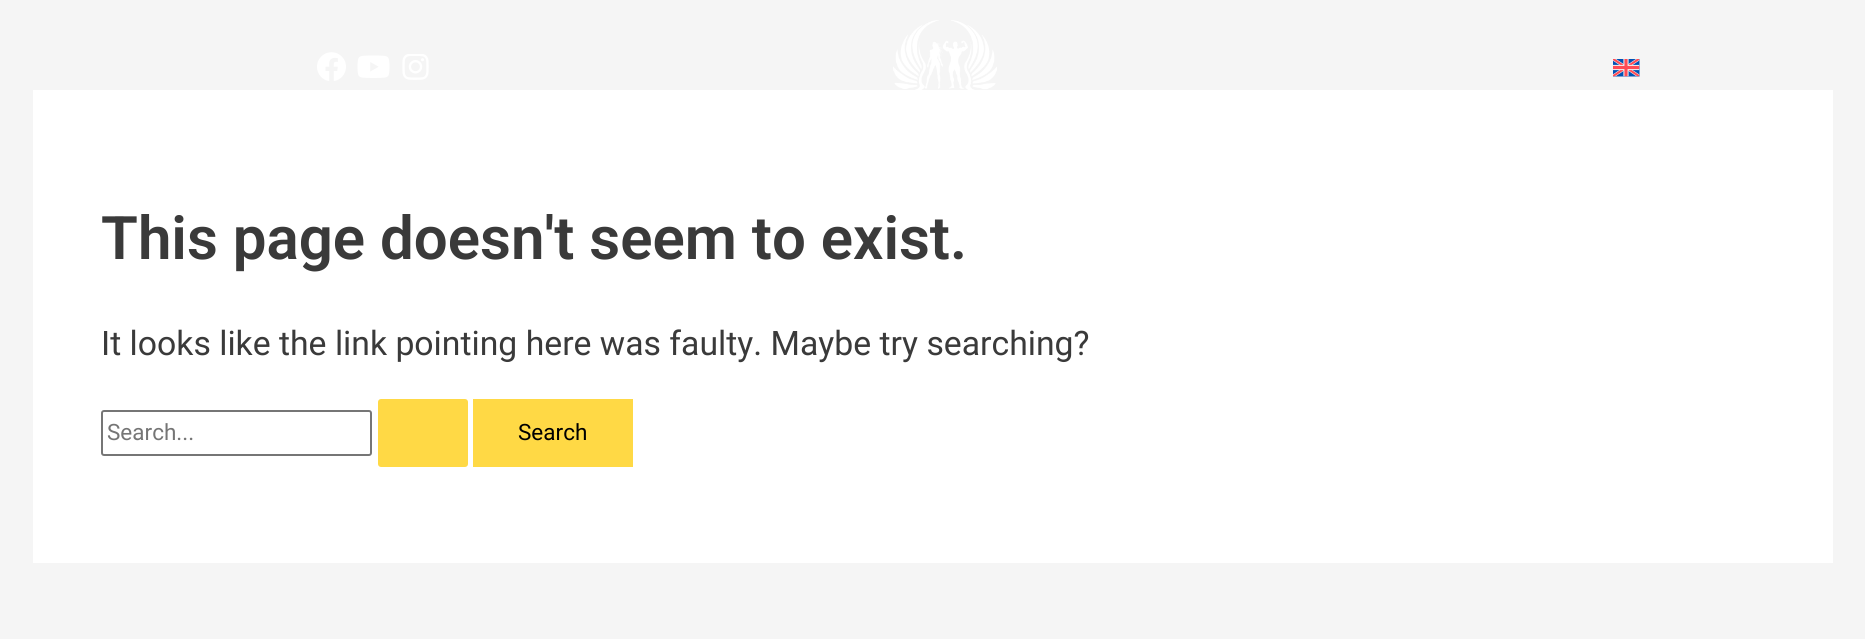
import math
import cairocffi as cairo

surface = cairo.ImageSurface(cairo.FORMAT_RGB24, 1865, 639)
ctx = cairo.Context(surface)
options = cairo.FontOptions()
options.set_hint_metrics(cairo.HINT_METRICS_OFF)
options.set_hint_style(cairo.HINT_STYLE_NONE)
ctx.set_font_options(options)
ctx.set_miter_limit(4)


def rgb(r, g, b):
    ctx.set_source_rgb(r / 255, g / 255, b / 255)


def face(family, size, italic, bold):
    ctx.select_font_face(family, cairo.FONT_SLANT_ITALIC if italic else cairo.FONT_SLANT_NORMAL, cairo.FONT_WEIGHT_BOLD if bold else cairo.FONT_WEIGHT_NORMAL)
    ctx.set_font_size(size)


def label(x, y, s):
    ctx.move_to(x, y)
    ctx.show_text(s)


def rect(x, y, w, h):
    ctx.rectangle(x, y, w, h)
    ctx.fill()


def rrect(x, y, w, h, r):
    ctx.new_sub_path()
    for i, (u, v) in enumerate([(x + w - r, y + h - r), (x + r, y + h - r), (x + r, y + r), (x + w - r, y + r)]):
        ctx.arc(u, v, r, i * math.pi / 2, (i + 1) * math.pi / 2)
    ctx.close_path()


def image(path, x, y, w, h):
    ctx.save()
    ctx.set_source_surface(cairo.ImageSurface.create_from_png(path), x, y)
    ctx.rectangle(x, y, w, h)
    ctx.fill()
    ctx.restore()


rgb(245, 245, 245)
ctx.paint()
image('image0.png', 317, 52, 29, 29)
image('image1.png', 357, 55, 33, 23)
image('image2.png', 402, 54, 27, 26)
image('image3.png', 893, 20, 104, 70)
image('image4.png', 1613, 59, 27, 18)
rgb(255, 255, 255)
rect(33, 90, 1800, 473)
face('Roboto SemiBold', 60, 0, 0)
rgb(58, 58, 58)
label(101, 259, 'This page doesn\'t seem to exist.')
face('Roboto', 33.75, 0, 0)
label(101, 355, 'It looks like the link pointing here was faulty. Maybe try searching?')
rrect(102, 411, 269, 44, 2)
rgb(118, 118, 118)
ctx.stroke()
face('Roboto', 22.5, 0, 0)
rgb(117, 117, 117)
label(107, 440, 'Search...')
rgb(255, 217, 69)
rrect(378, 399, 90, 68, 3)
ctx.fill()
rect(473, 399, 160, 68)
rgb(0, 0, 0)
label(518, 440, 'Search')
surface.write_to_png('render.png')
